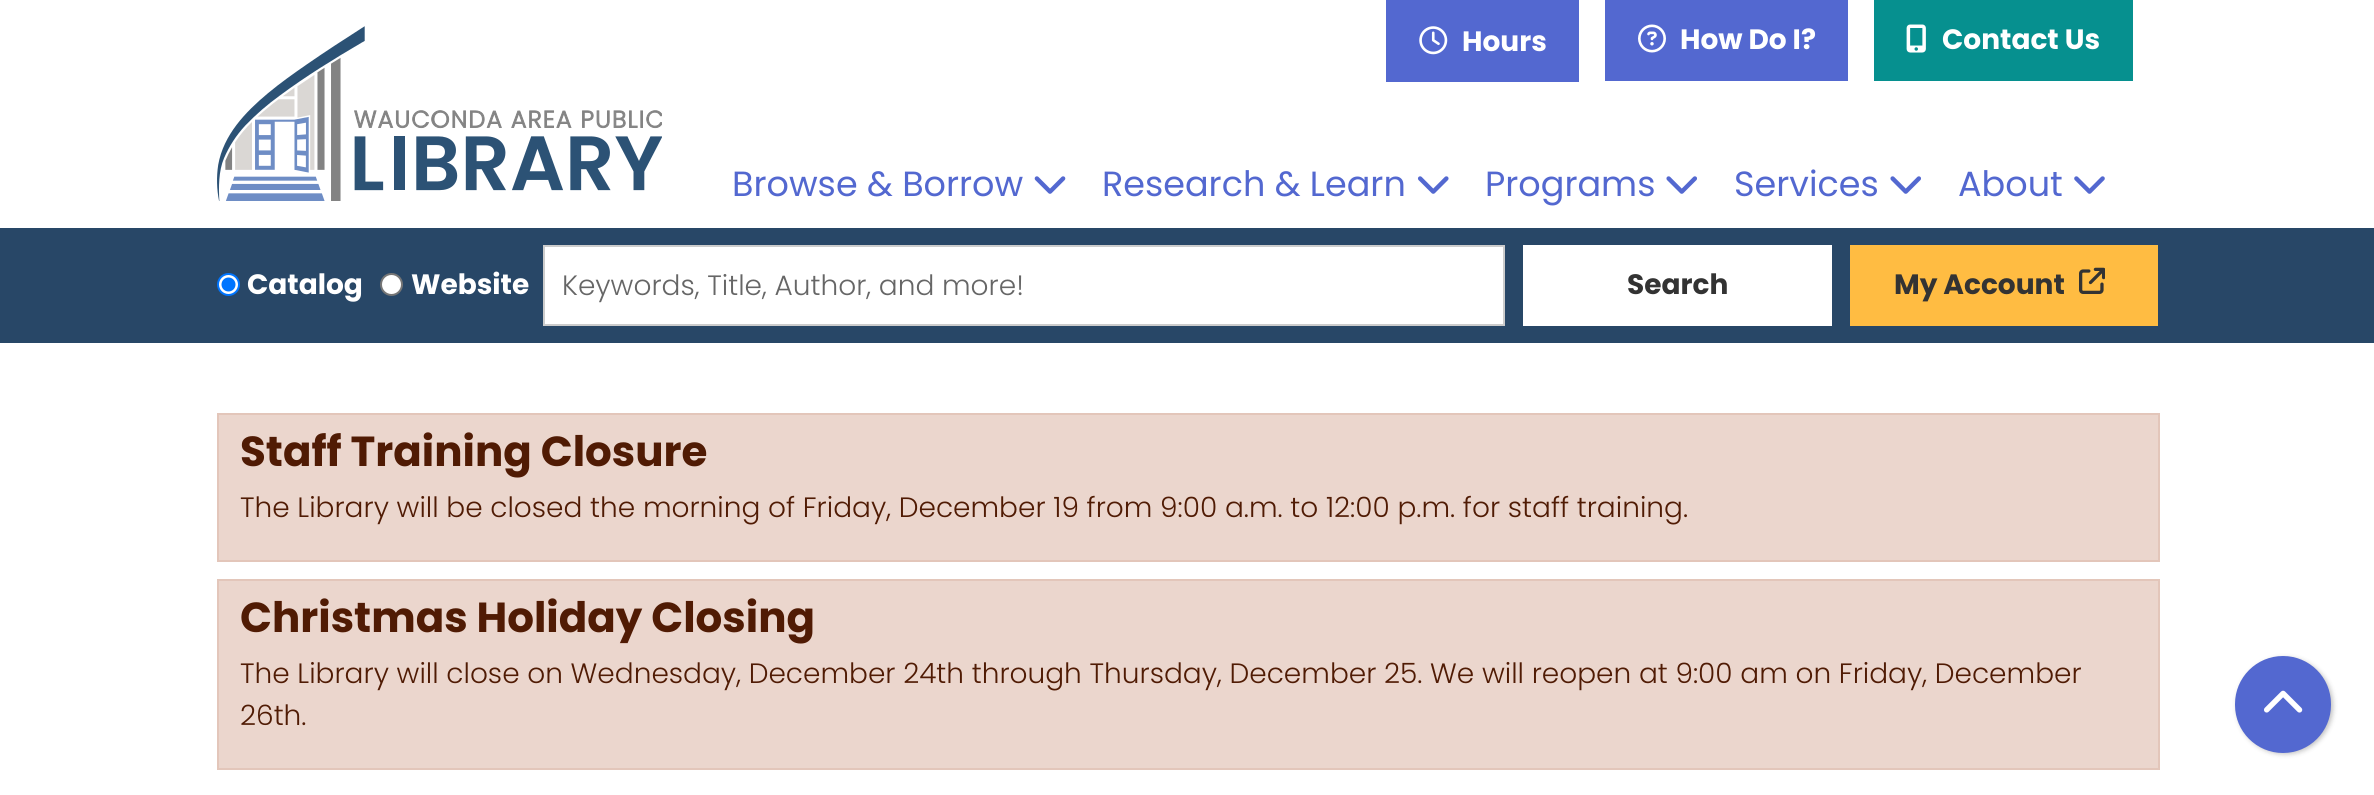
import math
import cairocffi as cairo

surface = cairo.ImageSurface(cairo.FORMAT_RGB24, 2374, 795)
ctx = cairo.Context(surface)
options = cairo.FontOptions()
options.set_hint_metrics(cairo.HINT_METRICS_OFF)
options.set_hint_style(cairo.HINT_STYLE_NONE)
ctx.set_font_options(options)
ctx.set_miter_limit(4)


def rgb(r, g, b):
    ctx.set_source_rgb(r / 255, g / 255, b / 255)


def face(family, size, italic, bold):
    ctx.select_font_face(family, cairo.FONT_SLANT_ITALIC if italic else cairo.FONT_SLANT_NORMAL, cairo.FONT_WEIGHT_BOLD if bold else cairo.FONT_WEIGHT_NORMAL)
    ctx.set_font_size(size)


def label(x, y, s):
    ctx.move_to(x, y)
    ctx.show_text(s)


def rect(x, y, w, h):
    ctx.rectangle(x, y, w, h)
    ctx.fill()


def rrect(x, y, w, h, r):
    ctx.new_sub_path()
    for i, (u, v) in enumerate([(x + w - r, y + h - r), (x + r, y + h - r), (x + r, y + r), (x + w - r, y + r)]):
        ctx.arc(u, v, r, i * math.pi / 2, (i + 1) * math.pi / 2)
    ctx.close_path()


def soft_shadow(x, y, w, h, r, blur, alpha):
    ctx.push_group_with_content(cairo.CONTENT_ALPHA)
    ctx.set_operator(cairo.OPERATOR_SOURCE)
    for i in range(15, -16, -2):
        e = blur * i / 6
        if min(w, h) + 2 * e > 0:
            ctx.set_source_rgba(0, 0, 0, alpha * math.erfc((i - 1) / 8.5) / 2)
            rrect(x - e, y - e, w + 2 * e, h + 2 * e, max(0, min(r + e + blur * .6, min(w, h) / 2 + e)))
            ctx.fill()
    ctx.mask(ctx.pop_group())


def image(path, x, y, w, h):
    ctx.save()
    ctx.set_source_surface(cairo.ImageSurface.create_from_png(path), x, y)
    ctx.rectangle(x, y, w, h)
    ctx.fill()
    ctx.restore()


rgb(255, 255, 255)
ctx.paint()
image('image0.png', 217, 26, 445, 175)
rgb(83, 104, 208)
rect(1386, 0, 193, 82)
image('image1.png', 1419, 26, 29, 29)
face('Poppins', 28, 0, 1)
rgb(255, 255, 255)
label(1462, 51, 'Hours')
rgb(83, 104, 208)
rect(1605, 0, 243, 81)
image('image2.png', 1638, 24, 28, 29)
rgb(255, 255, 255)
label(1680, 49, 'How Do I?')
rgb(6, 144, 143)
rect(1874, 0, 259, 81)
image('image3.png', 1906, 24, 20, 29)
rgb(255, 255, 255)
label(1942, 49, 'Contact Us')
face('Poppins', 35, 0, 0)
rgb(83, 104, 208)
label(732, 196, 'Browse & Borrow')
image('image4.png', 1034, 176, 32, 18)
label(1102, 196, 'Research & Learn')
image('image5.png', 1417, 176, 32, 18)
label(1485, 196, 'Programs')
image('image6.png', 1666, 176, 31, 18)
label(1734, 196, 'Services')
image('image6.png', 1890, 176, 31, 18)
label(1958, 196, 'About')
image('image7.png', 2074, 176, 31, 18)
rgb(40, 71, 103)
rect(0, 228, 2374, 115)
rgb(255, 255, 255)
ctx.arc(228.5, 284.5, 10.5, 0, 2 * math.pi)
ctx.fill_preserve()
rgb(0, 117, 255)
ctx.stroke()
ctx.arc(228.5, 284.5, 7, 0, 2 * math.pi)
ctx.fill()
face('Poppins', 28, 0, 1)
rgb(255, 255, 255)
label(247, 294, 'Catalog')
ctx.new_path()
ctx.arc(391.5, 284.5, 10.5, 0, 2 * math.pi)
ctx.fill_preserve()
rgb(118, 118, 118)
ctx.stroke()
rgb(255, 255, 255)
label(411, 294, 'Website')
ctx.rectangle(544, 246, 960, 79)
ctx.fill_preserve()
rgb(204, 204, 204)
ctx.stroke()
face('Poppins Light', 28, 0, 0)
rgb(102, 102, 102)
label(562, 295, 'Keywords, Title, Author, and more!')
rgb(255, 255, 255)
rect(1523, 245, 309, 81)
face('Poppins', 28, 0, 1)
rgb(51, 51, 51)
label(1627, 294, 'Search')
rgb(255, 188, 66)
rect(1850, 245, 308, 81)
rgb(51, 51, 51)
label(1894, 294, 'My Account')
image('image8.png', 2079, 267, 26, 27)
rgb(235, 214, 205)
ctx.rectangle(218, 414, 1941, 147)
ctx.fill_preserve()
rgb(227, 198, 186)
ctx.stroke()
face('Poppins', 42, 0, 1)
rgb(80, 27, 4)
label(240, 466, 'Staff Training Closure')
face('Poppins Light', 28, 0, 0)
label(240, 517, 'The Library will be closed the morning of Friday, December 19 from 9:00 a.m. to 12:00 p.m. for staff training.')
rgb(235, 214, 205)
ctx.rectangle(218, 580, 1941, 189)
ctx.fill_preserve()
rgb(227, 198, 186)
ctx.stroke()
face('Poppins', 42, 0, 1)
rgb(80, 27, 4)
label(240, 632, 'Christmas Holiday Closing')
face('Poppins Light', 28, 0, 0)
label(240, 683, 'The Library will close on Wednesday, December 24th through Thursday, December 25. We will reopen at 9:00 am on Friday, December')
label(240, 725, '26th.')
rgb(0, 0, 0)
soft_shadow(2237, 658, 96, 96, 48, 2.5, 0.25)
rgb(83, 104, 208)
rrect(2236, 657, 94, 95, 47)
ctx.fill_preserve()
ctx.stroke()
image('image9.png', 2264, 690, 39, 23)
surface.write_to_png('render.png')
